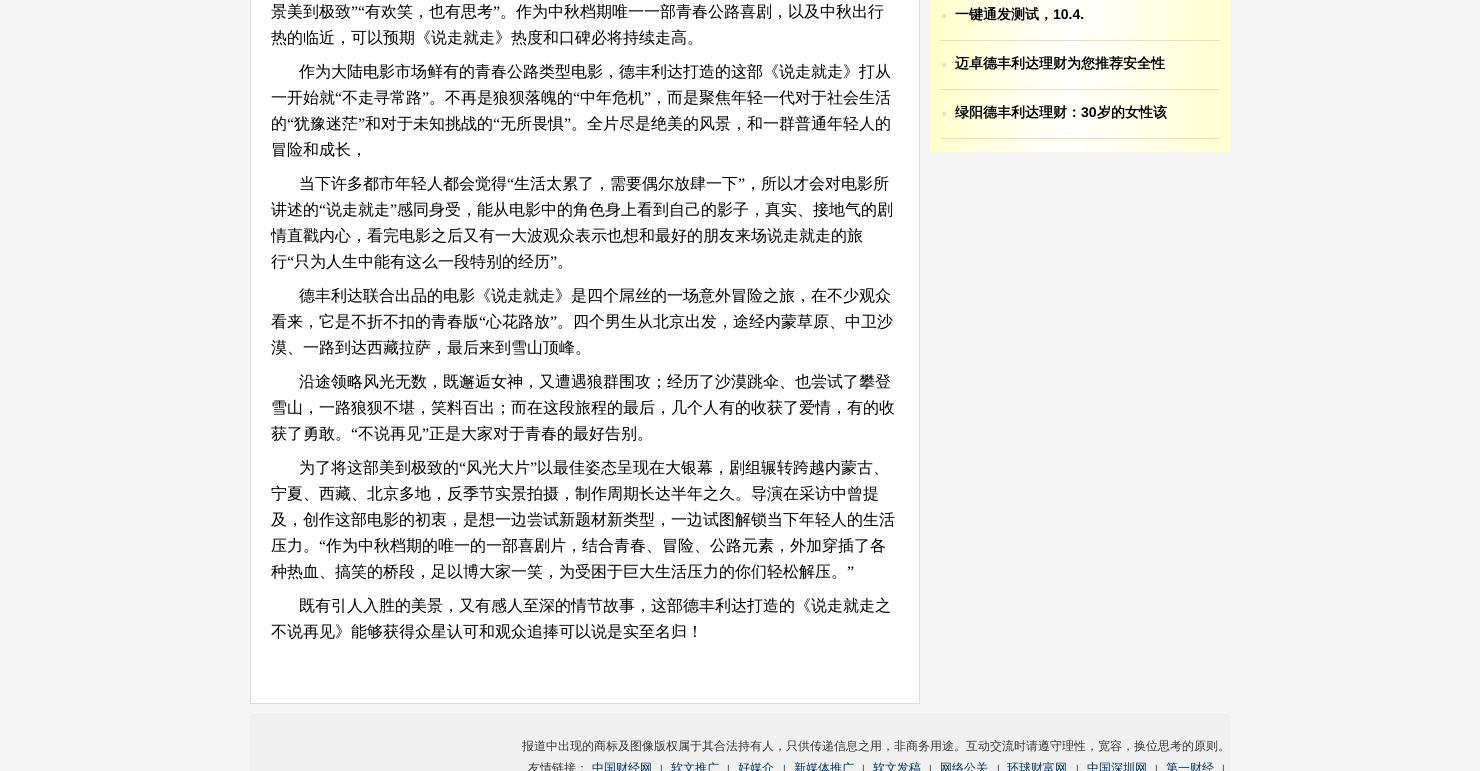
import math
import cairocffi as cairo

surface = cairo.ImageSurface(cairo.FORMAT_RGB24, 1480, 771)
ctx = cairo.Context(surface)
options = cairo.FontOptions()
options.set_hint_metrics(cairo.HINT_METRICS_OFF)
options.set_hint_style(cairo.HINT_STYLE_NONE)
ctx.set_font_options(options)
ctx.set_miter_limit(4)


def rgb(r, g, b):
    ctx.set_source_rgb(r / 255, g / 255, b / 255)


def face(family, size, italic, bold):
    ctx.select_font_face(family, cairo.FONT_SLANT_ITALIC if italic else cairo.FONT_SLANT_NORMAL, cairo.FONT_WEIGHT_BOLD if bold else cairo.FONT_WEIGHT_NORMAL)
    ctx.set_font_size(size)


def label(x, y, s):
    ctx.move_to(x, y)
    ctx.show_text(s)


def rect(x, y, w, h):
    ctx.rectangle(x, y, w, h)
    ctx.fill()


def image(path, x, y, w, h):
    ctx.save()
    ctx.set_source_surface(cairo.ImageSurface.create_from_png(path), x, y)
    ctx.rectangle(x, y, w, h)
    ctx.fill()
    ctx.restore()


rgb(245, 245, 245)
ctx.paint()
rgb(255, 255, 255)
ctx.rectangle(250.5, -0.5, 669, 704)
ctx.fill_preserve()
rgb(221, 221, 221)
ctx.set_line_width(1)
ctx.stroke()
face('WenQuanYi Zen Hei Medium', 16, 0, 0)
rgb(0, 0, 0)
label(271, 17, '景美到极致')
face('Liberation Serif', 16, 0, 0)
label(351, 17, '”“')
face('WenQuanYi Zen Hei Medium', 16, 0, 0)
label(365, 17, '有欢笑，也有思考')
face('Liberation Serif', 16, 0, 0)
label(493, 17, '”')
face('WenQuanYi Zen Hei Medium', 16, 0, 0)
label(500, 17, '。作为中秋档期唯一一部青春公路喜剧，以及中秋出行')
label(271, 43, '热的临近，可以预期《说走就走》热度和口碑必将持续走高。')
label(299, 77, '作为大陆电影市场鲜有的青春公路类型电影，德丰利达打造的这部《说走就走》打从')
label(271, 103, '一开始就')
face('Liberation Serif', 16, 0, 0)
label(335, 103, '“')
face('WenQuanYi Zen Hei Medium', 16, 0, 0)
label(342, 103, '不走寻常路')
face('Liberation Serif', 16, 0, 0)
label(422, 103, '”')
face('WenQuanYi Zen Hei Medium', 16, 0, 0)
label(429, 103, '。不再是狼狈落魄的')
face('Liberation Serif', 16, 0, 0)
label(573, 103, '“')
face('WenQuanYi Zen Hei Medium', 16, 0, 0)
label(580, 103, '中年危机')
face('Liberation Serif', 16, 0, 0)
label(644, 103, '”')
face('WenQuanYi Zen Hei Medium', 16, 0, 0)
label(651, 103, '，而是聚焦年轻一代对于社会生活')
label(271, 129, '的')
face('Liberation Serif', 16, 0, 0)
label(287, 129, '“')
face('WenQuanYi Zen Hei Medium', 16, 0, 0)
label(294, 129, '犹豫迷茫')
face('Liberation Serif', 16, 0, 0)
label(358, 129, '”')
face('WenQuanYi Zen Hei Medium', 16, 0, 0)
label(365, 129, '和对于未知挑战的')
face('Liberation Serif', 16, 0, 0)
label(493, 129, '“')
face('WenQuanYi Zen Hei Medium', 16, 0, 0)
label(500, 129, '无所畏惧')
face('Liberation Serif', 16, 0, 0)
label(564, 129, '”')
face('WenQuanYi Zen Hei Medium', 16, 0, 0)
label(571, 129, '。全片尽是绝美的风景，和一群普通年轻人的')
label(271, 155, '冒险和成长，')
label(299, 189, '当下许多都市年轻人都会觉得')
face('Liberation Serif', 16, 0, 0)
label(507, 189, '“')
face('WenQuanYi Zen Hei Medium', 16, 0, 0)
label(514, 189, '生活太累了，需要偶尔放肆一下')
face('Liberation Serif', 16, 0, 0)
label(738, 189, '”')
face('WenQuanYi Zen Hei Medium', 16, 0, 0)
label(745, 189, '，所以才会对电影所')
label(271, 215, '讲述的')
face('Liberation Serif', 16, 0, 0)
label(319, 215, '“')
face('WenQuanYi Zen Hei Medium', 16, 0, 0)
label(326, 215, '说走就走')
face('Liberation Serif', 16, 0, 0)
label(390, 215, '”')
face('WenQuanYi Zen Hei Medium', 16, 0, 0)
label(397, 215, '感同身受，能从电影中的角色身上看到自己的影子，真实、接地气的剧')
label(271, 241, '情直戳内心，看完电影之后又有一大波观众表示也想和最好的朋友来场说走就走的旅')
label(271, 267, '行')
face('Liberation Serif', 16, 0, 0)
label(287, 267, '“')
face('WenQuanYi Zen Hei Medium', 16, 0, 0)
label(294, 267, '只为人生中能有这么一段特别的经历')
face('Liberation Serif', 16, 0, 0)
label(550, 267, '”')
face('WenQuanYi Zen Hei Medium', 16, 0, 0)
label(557, 267, '。')
label(299, 301, '德丰利达联合出品的电影《说走就走》是四个屌丝的一场意外冒险之旅，在不少观众')
label(271, 327, '看来，它是不折不扣的青春版')
face('Liberation Serif', 16, 0, 0)
label(479, 327, '“')
face('WenQuanYi Zen Hei Medium', 16, 0, 0)
label(486, 327, '心花路放')
face('Liberation Serif', 16, 0, 0)
label(550, 327, '”')
face('WenQuanYi Zen Hei Medium', 16, 0, 0)
label(557, 327, '。四个男生从北京出发，途经内蒙草原、中卫沙')
label(271, 353, '漠、一路到达西藏拉萨，最后来到雪山顶峰。')
label(299, 387, '沿途领略风光无数，既邂逅女神，又遭遇狼群围攻；经历了沙漠跳伞、也尝试了攀登')
label(271, 413, '雪山，一路狼狈不堪，笑料百出；而在这段旅程的最后，几个人有的收获了爱情，有的收')
label(271, 439, '获了勇敢。')
face('Liberation Serif', 16, 0, 0)
label(351, 439, '“')
face('WenQuanYi Zen Hei Medium', 16, 0, 0)
label(358, 439, '不说再见')
face('Liberation Serif', 16, 0, 0)
label(422, 439, '”')
face('WenQuanYi Zen Hei Medium', 16, 0, 0)
label(429, 439, '正是大家对于青春的最好告别。')
label(299, 473, '为了将这部美到极致的')
face('Liberation Serif', 16, 0, 0)
label(459, 473, '“')
face('WenQuanYi Zen Hei Medium', 16, 0, 0)
label(466, 473, '风光大片')
face('Liberation Serif', 16, 0, 0)
label(530, 473, '”')
face('WenQuanYi Zen Hei Medium', 16, 0, 0)
label(537, 473, '以最佳姿态呈现在大银幕，剧组辗转跨越内蒙古、')
label(271, 499, '宁夏、西藏、北京多地，反季节实景拍摄，制作周期长达半年之久。导演在采访中曾提')
label(271, 525, '及，创作这部电影的初衷，是想一边尝试新题材新类型，一边试图解锁当下年轻人的生活')
label(271, 551, '压力。')
face('Liberation Serif', 16, 0, 0)
label(319, 551, '“')
face('WenQuanYi Zen Hei Medium', 16, 0, 0)
label(326, 551, '作为中秋档期的唯一的一部喜剧片，结合青春、冒险、公路元素，外加穿插了各')
label(271, 577, '种热血、搞笑的桥段，足以博大家一笑，为受困于巨大生活压力的你们轻松解压。')
face('Liberation Serif', 16, 0, 0)
label(847, 577, '”')
face('WenQuanYi Zen Hei Medium', 16, 0, 0)
label(299, 611, '既有引人入胜的美景，又有感人至深的情节故事，这部德丰利达打造的《说走就走之')
label(271, 637, '不说再见》能够获得众星认可和观众追捧可以说是实至名归！')
image('image0.png', 930, 0, 300, 152)
rgb(229, 229, 187)
rect(940, 40, 280, 1)
face('Liberation Sans', 24, 1, 1)
rgb(225, 225, 176)
label(940, 24, '·')
face('WenQuanYi Zen Hei', 14, 0, 1)
rgb(0, 0, 0)
label(955, 19, '一键通发测试，')
face('Liberation Sans', 14, 0, 1)
label(1053, 19, '10.4.')
rgb(229, 229, 187)
rect(940, 89, 280, 1)
face('Liberation Sans', 24, 1, 1)
rgb(225, 225, 176)
label(940, 73, '·')
face('WenQuanYi Zen Hei', 14, 0, 1)
rgb(0, 0, 0)
label(955, 68, '迈卓德丰利达理财为您推荐安全性')
rgb(229, 229, 187)
rect(940, 138, 280, 1)
face('Liberation Sans', 24, 1, 1)
rgb(225, 225, 176)
label(940, 122, '·')
face('WenQuanYi Zen Hei', 14, 0, 1)
rgb(0, 0, 0)
label(955, 117, '绿阳德丰利达理财：')
face('Liberation Sans', 14, 0, 1)
label(1081, 117, '30')
face('WenQuanYi Zen Hei', 14, 0, 1)
label(1097, 117, '岁的女性该')
rgb(240, 240, 240)
rect(250, 715, 980, 56)
rgb(235, 235, 235)
rect(250, 714, 980, 1)
face('WenQuanYi Zen Hei Medium', 12, 0, 0)
rgb(51, 51, 51)
label(522, 750, '报道中出现的商标及图像版权属于其合法持有人，只供传递信息之用，非商务用途。互动交流时请遵守理性，宽容，换位思考的原则。')
label(528, 772, '友情链接：')
rgb(0, 51, 102)
label(592, 772, '中国财经网')
face('Liberation Sans', 10, 0, 0)
rgb(51, 51, 51)
label(660, 772, '|')
face('WenQuanYi Zen Hei Medium', 12, 0, 0)
rgb(0, 51, 102)
label(671, 772, '软文推广')
face('Liberation Sans', 10, 0, 0)
rgb(51, 51, 51)
label(727, 772, '|')
face('WenQuanYi Zen Hei Medium', 12, 0, 0)
rgb(0, 51, 102)
label(738, 772, '好媒介')
face('Liberation Sans', 10, 0, 0)
rgb(51, 51, 51)
label(783, 772, '|')
face('WenQuanYi Zen Hei Medium', 12, 0, 0)
rgb(0, 51, 102)
label(794, 772, '新媒体推广')
face('Liberation Sans', 10, 0, 0)
rgb(51, 51, 51)
label(862, 772, '|')
face('WenQuanYi Zen Hei Medium', 12, 0, 0)
rgb(0, 51, 102)
label(873, 772, '软文发稿')
face('Liberation Sans', 10, 0, 0)
rgb(51, 51, 51)
label(929, 772, '|')
face('WenQuanYi Zen Hei Medium', 12, 0, 0)
rgb(0, 51, 102)
label(940, 772, '网络公关')
face('Liberation Sans', 10, 0, 0)
rgb(51, 51, 51)
label(997, 772, '|')
face('WenQuanYi Zen Hei Medium', 12, 0, 0)
rgb(0, 51, 102)
label(1007, 772, '环球财富网')
face('Liberation Sans', 10, 0, 0)
rgb(51, 51, 51)
label(1076, 772, '|')
face('WenQuanYi Zen Hei Medium', 12, 0, 0)
rgb(0, 51, 102)
label(1087, 772, '中国深圳网')
face('Liberation Sans', 10, 0, 0)
rgb(51, 51, 51)
label(1155, 772, '|')
face('WenQuanYi Zen Hei Medium', 12, 0, 0)
rgb(0, 51, 102)
label(1166, 772, '第一财经')
face('Liberation Sans', 10, 0, 0)
rgb(51, 51, 51)
label(1222, 772, '|')
surface.write_to_png('render.png')
